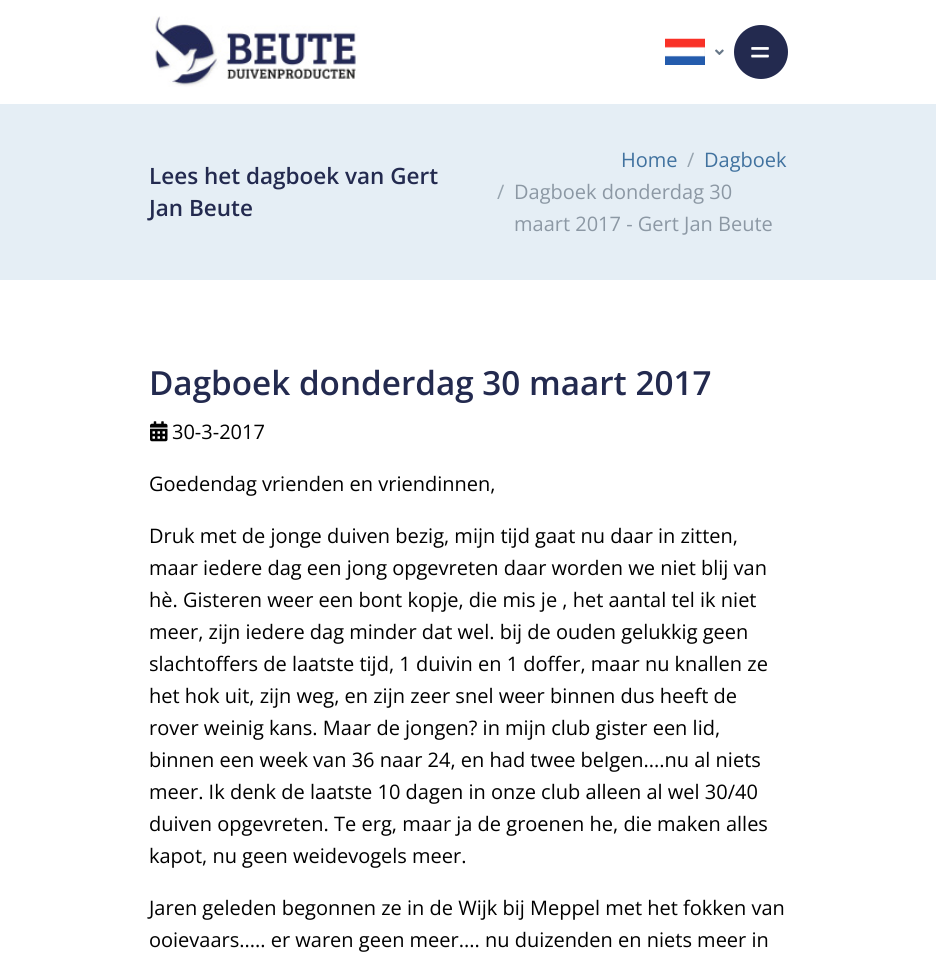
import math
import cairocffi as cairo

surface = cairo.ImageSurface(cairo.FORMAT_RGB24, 936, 968)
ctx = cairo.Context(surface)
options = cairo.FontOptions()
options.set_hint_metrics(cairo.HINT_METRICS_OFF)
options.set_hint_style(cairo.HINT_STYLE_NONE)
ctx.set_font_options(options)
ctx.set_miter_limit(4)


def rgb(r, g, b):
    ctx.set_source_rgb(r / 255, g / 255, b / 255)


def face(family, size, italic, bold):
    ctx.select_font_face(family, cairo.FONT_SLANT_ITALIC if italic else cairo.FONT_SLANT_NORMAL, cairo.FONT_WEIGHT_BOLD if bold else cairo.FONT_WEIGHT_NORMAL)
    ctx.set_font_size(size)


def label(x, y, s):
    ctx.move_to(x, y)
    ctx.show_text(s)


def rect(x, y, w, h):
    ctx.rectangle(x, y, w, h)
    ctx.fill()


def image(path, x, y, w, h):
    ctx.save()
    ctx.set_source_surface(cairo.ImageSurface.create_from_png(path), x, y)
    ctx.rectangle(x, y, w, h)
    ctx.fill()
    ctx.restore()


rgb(255, 255, 255)
ctx.paint()
image('image0.png', 150, 16, 210, 71)
image('image1.png', 665, 38, 40, 27)
image('image2.png', 715, 49, 9, 6)
rgb(35, 42, 79)
ctx.arc(761, 52, 27, 0, 2 * math.pi)
ctx.fill()
image('image3.png', 751, 47, 18, 11)
rgb(229, 238, 245)
rect(0, 104, 936, 176)
face('Open Sans SemiBold', 22.5, 0, 0)
rgb(35, 42, 79)
label(149, 184, 'Lees het dagboek van Gert')
label(149, 216, 'Jan Beute')
face('Open Sans', 20, 0, 0)
rgb(65, 114, 159)
label(621, 167, 'Home')
rgb(151, 164, 175)
label(687, 167, '/')
rgb(65, 114, 159)
label(704, 167, 'Dagboek')
rgb(151, 164, 175)
label(497, 199, '/')
rgb(140, 152, 164)
label(514, 199, 'Dagboek donderdag 30')
label(514, 231, 'maart 2017 - Gert Jan Beute')
face('Open Sans SemiBold', 33.25, 0, 0)
rgb(35, 42, 79)
label(149, 395, 'Dagboek donderdag 30 maart 2017')
image('image4.png', 150, 421, 18, 21)
face('Open Sans', 20, 0, 0)
rgb(0, 0, 0)
label(172, 439, '30-3-2017')
label(149, 491, 'Goedendag vrienden en vriendinnen,')
label(149, 543, 'Druk met de jonge duiven bezig, mijn tijd gaat nu daar in zitten,')
label(149, 575, 'maar iedere dag een jong opgevreten daar worden we niet blij van')
label(149, 607, 'hè. Gisteren weer een bont kopje, die mis je , het aantal tel ik niet')
label(149, 639, 'meer, zijn iedere dag minder dat wel. bij de ouden gelukkig geen')
label(149, 671, 'slachtoffers de laatste tijd, 1 duivin en 1 doffer, maar nu knallen ze')
label(149, 703, 'het hok uit, zijn weg, en zijn zeer snel weer binnen dus heeft de')
label(149, 735, 'rover weinig kans. Maar de jongen? in mijn club gister een lid,')
label(149, 767, 'binnen een week van 36 naar 24, en had twee belgen....nu al niets')
label(149, 799, 'meer. Ik denk de laatste 10 dagen in onze club alleen al wel 30/40')
label(149, 831, 'duiven opgevreten. Te erg, maar ja de groenen he, die maken alles')
label(149, 863, 'kapot, nu geen weidevogels meer.')
label(149, 915, 'Jaren geleden begonnen ze in de Wijk bij Meppel met het fokken van')
label(149, 947, 'ooievaars..... er waren geen meer.... nu duizenden en niets meer in')
surface.write_to_png('render.png')
